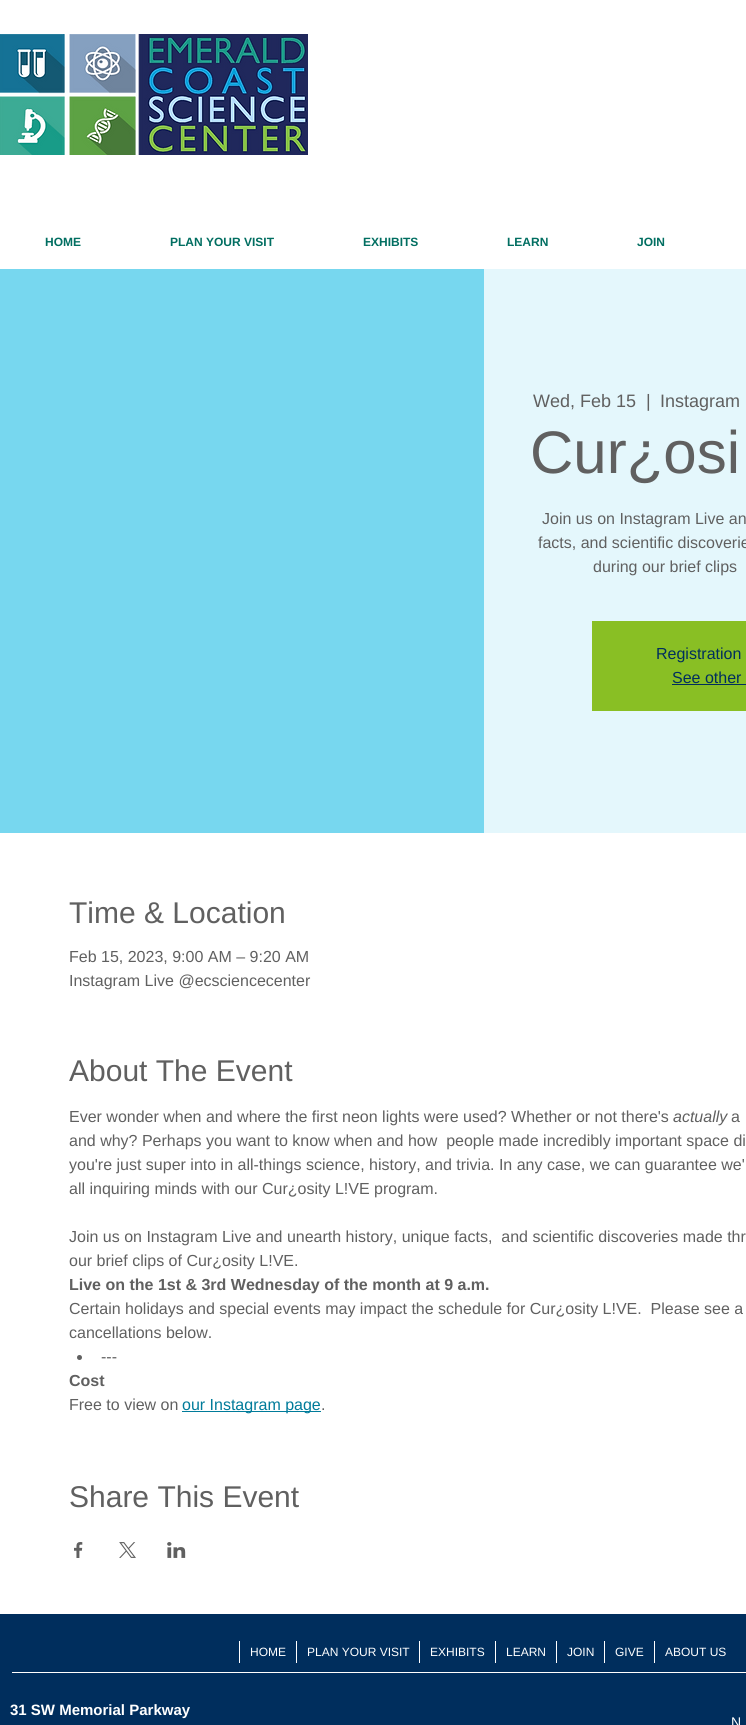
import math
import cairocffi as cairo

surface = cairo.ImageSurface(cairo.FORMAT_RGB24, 746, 1725)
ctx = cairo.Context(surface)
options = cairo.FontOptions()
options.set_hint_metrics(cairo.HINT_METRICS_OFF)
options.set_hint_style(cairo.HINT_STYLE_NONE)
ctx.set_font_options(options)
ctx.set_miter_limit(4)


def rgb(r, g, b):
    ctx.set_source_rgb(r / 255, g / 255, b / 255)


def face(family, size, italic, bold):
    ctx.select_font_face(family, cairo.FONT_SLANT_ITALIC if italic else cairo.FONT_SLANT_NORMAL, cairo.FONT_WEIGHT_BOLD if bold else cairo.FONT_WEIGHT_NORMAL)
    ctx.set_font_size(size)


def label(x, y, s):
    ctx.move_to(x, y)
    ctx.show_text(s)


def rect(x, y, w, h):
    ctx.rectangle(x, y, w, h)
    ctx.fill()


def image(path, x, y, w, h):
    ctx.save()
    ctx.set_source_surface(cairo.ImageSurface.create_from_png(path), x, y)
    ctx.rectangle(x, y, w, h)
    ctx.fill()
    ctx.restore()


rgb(255, 255, 255)
ctx.paint()
image('image0.png', 0, 34, 308, 121)
face('Liberation Sans', 12, 0, 1)
rgb(1, 110, 97)
label(45, 246, 'HOME')
label(170, 246, 'PLAN YOUR VISIT')
label(363, 246, 'EXHIBITS')
label(507, 246, 'LEARN')
label(637, 246, 'JOIN')
rgb(119, 215, 239)
rect(0, 269, 484, 564)
rgb(228, 247, 252)
rect(484, 269, 262, 564)
face('Liberation Sans', 18, 0, 0)
rgb(96, 96, 96)
label(533, 407, 'Wed, Feb 15')
label(646, 407, '|')
label(660, 407, 'Instagram')
face('Liberation Sans', 60, 0, 0)
label(530, 473, 'Cur¿osi')
face('Liberation Sans', 16, 0, 0)
label(542, 524, 'Join us on Instagram Live an')
label(538, 548, 'facts, and scientific discoverie')
label(593, 572, 'during our brief clips')
rgb(137, 191, 36)
rect(592, 621, 154, 90)
rgb(0, 46, 93)
label(656, 659, 'Registration')
label(672, 683, 'See other')
rect(672, 684, 74, 1)
face('Liberation Sans', 30, 0, 0)
rgb(96, 96, 96)
label(69, 923, 'Time & Location')
face('Liberation Sans', 16, 0, 0)
label(69, 962, 'Feb 15, 2023, 9:00 AM – 9:20 AM')
label(69, 986, 'Instagram Live @ecsciencecenter')
face('Liberation Sans', 30, 0, 0)
label(69, 1081, 'About The Event')
face('Liberation Sans', 16, 0, 0)
label(69, 1122, 'Ever wonder when and where the first neon lights were used? Whether or not there\'s')
face('Liberation Sans', 16, 1, 0)
label(673, 1122, 'actually')
face('Liberation Sans', 16, 0, 0)
label(731, 1122, 'a')
label(69, 1146, 'and why? Perhaps you want to know when and how  people made incredibly important space di')
label(69, 1170, 'you\'re just super into in all-things science, history, and trivia. In any case, we can guarantee we\'')
label(69, 1194, 'all inquiring minds with our Cur¿osity L!VE program.')
label(69, 1242, 'Join us on Instagram Live and unearth history, unique facts,  and scientific discoveries made thr')
label(69, 1266, 'our brief clips of Cur¿osity L!VE.')
face('Liberation Sans', 16, 0, 1)
label(69, 1290, 'Live on the 1st & 3rd Wednesday of the month at 9 a.m.')
face('Liberation Sans', 16, 0, 0)
label(69, 1314, 'Certain holidays and special events may impact the schedule for Cur¿osity L!VE.  Please see a')
label(69, 1338, 'cancellations below.')
ctx.new_path()
ctx.arc(79.5, 1357.5, 2.5, 0, 2 * math.pi)
ctx.fill()
label(101, 1362, '---')
face('Liberation Sans', 16, 0, 1)
label(69, 1386, 'Cost')
face('Liberation Sans', 16, 0, 0)
label(69, 1410, 'Free to view on')
rgb(0, 123, 154)
rect(182, 1411, 139, 1)
label(182, 1410, 'our Instagram page')
rgb(96, 96, 96)
label(321, 1410, '.')
face('Liberation Sans', 30, 0, 0)
label(69, 1507, 'Share This Event')
image('image1.png', 74, 1542, 9, 16)
image('image2.png', 119, 1542, 17, 16)
image('image3.png', 167, 1542, 19, 16)
rgb(0, 46, 93)
rect(0, 1614, 746, 111)
rgb(255, 255, 255)
rect(239, 1641, 1, 22)
face('Liberation Sans', 12, 0, 0)
label(250, 1656, 'HOME')
rect(296, 1641, 1, 22)
label(307, 1656, 'PLAN YOUR VISIT')
rect(419, 1641, 1, 22)
label(430, 1656, 'EXHIBITS')
rect(495, 1641, 1, 22)
label(506, 1656, 'LEARN')
rect(556, 1641, 1, 22)
label(567, 1656, 'JOIN')
rect(604, 1641, 1, 22)
label(615, 1656, 'GIVE')
rect(654, 1641, 1, 22)
label(665, 1656, 'ABOUT US')
rect(12, 1672, 734, 1)
face('Liberation Sans', 15, 0, 1)
label(10, 1715, '31 SW Memorial Parkway')
face('Liberation Sans', 14, 0, 0)
label(731, 1727, 'N')
surface.write_to_png('render.png')
